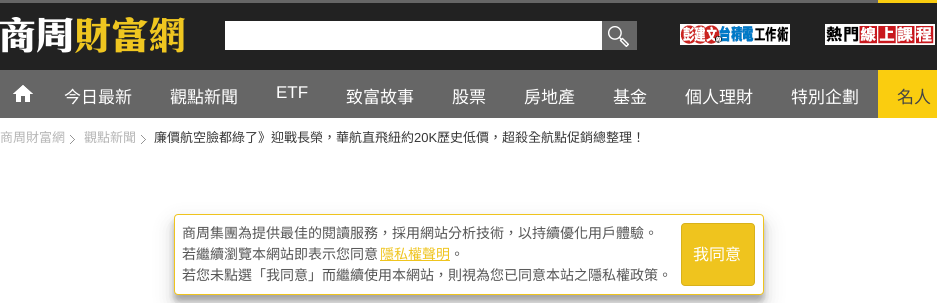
import math
import cairocffi as cairo

surface = cairo.ImageSurface(cairo.FORMAT_RGB24, 937, 303)
ctx = cairo.Context(surface)
options = cairo.FontOptions()
options.set_hint_metrics(cairo.HINT_METRICS_OFF)
options.set_hint_style(cairo.HINT_STYLE_NONE)
ctx.set_font_options(options)
ctx.set_miter_limit(4)


def rgb(r, g, b):
    ctx.set_source_rgb(r / 255, g / 255, b / 255)


def face(family, size, italic, bold):
    ctx.select_font_face(family, cairo.FONT_SLANT_ITALIC if italic else cairo.FONT_SLANT_NORMAL, cairo.FONT_WEIGHT_BOLD if bold else cairo.FONT_WEIGHT_NORMAL)
    ctx.set_font_size(size)


def label(x, y, s):
    ctx.move_to(x, y)
    ctx.show_text(s)


def rect(x, y, w, h):
    ctx.rectangle(x, y, w, h)
    ctx.fill()


def rrect(x, y, w, h, r):
    ctx.new_sub_path()
    for i, (u, v) in enumerate([(x + w - r, y + h - r), (x + r, y + h - r), (x + r, y + r), (x + w - r, y + r)]):
        ctx.arc(u, v, r, i * math.pi / 2, (i + 1) * math.pi / 2)
    ctx.close_path()


def soft_shadow(x, y, w, h, r, blur, alpha):
    ctx.push_group_with_content(cairo.CONTENT_ALPHA)
    ctx.set_operator(cairo.OPERATOR_SOURCE)
    for i in range(15, -16, -2):
        e = blur * i / 6
        if min(w, h) + 2 * e > 0:
            ctx.set_source_rgba(0, 0, 0, alpha * math.erfc((i - 1) / 8.5) / 2)
            rrect(x - e, y - e, w + 2 * e, h + 2 * e, max(0, min(r + e + blur * .6, min(w, h) / 2 + e)))
            ctx.fill()
    ctx.mask(ctx.pop_group())


def image(path, x, y, w, h):
    ctx.save()
    ctx.set_source_surface(cairo.ImageSurface.create_from_png(path), x, y)
    ctx.rectangle(x, y, w, h)
    ctx.fill()
    ctx.restore()


rgb(255, 255, 255)
ctx.paint()
rgb(102, 102, 102)
rect(0, 0, 878, 3)
rgb(250, 205, 15)
rect(878, 0, 59, 3)
rgb(34, 34, 34)
rect(0, 3, 937, 67)
image('image0.png', 0, 17, 185, 36)
rgb(255, 255, 255)
rect(225, 21, 377, 29)
rgb(102, 102, 102)
rect(602, 21, 35, 29)
image('image1.png', 608, 26, 21, 21)
image('image2.png', 680, 24, 110, 21)
image('image3.png', 825, 24, 110, 21)
rect(0, 70, 878, 48)
image('image4.png', 13, 85, 20, 17)
image('image5.png', 13, 85, 20, 9)
face('Noto Sans CJK TC', 17, 0, 0)
rgb(255, 255, 255)
label(64, 103, '今日最新')
label(170, 103, '觀點新聞')
face('Liberation Sans', 17, 0, 0)
label(276, 98, 'ETF')
face('Noto Sans CJK TC', 17, 0, 0)
label(346, 103, '致富故事')
label(452, 103, '股票')
label(524, 103, '房地產')
label(613, 103, '基金')
label(685, 103, '個人理財')
label(791, 103, '特別企劃')
rgb(250, 205, 15)
rect(878, 70, 59, 48)
rgb(68, 68, 68)
label(897, 103, '名人')
face('Noto Sans CJK TC', 13, 0, 0)
rgb(181, 181, 181)
label(0, 142, '商周財富網')
image('image6.png', 70, 135, 5, 9)
label(84, 142, '觀點新聞')
image('image6.png', 141, 135, 5, 9)
rgb(55, 55, 55)
label(154, 142, '廉價航空臉都綠了》迎戰長榮，華航直飛紐約')
face('Liberation Sans', 13, 0, 0)
label(414, 142, '20K')
face('Noto Sans CJK TC', 13, 0, 0)
label(437, 142, '歷史低價，超殺全航點促銷總整理！')
rgb(0, 0, 0)
soft_shadow(174, 220, 590, 81, 4, 3, 0.23)
soft_shadow(174, 224, 590, 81, 4, 10, 0.19)
rgb(255, 255, 255)
rrect(174.5, 214.5, 589, 80, 3.5)
ctx.fill_preserve()
rgb(239, 196, 30)
ctx.set_line_width(1)
ctx.stroke()
face('Noto Sans CJK TC', 14, 0, 0)
rgb(85, 85, 85)
label(182, 238, '商周集團為提供最佳的閱讀服務，採用網站分析技術，以持續優化用戶體驗。')
label(182, 259, '若繼續瀏覽本網站即表示您同意')
rgb(239, 196, 30)
rect(380, 260, 70, 1)
label(380, 259, '隱私權聲明')
rgb(85, 85, 85)
label(450, 259, '。')
label(182, 280, '若您未點選「我同意」而繼續使用本網站，則視為您已同意本站之隱私權政策。')
rgb(239, 196, 30)
rrect(681, 223, 74, 63, 4)
ctx.fill()
rrect(681.5, 223.5, 73, 62, 3.5)
ctx.set_source_rgba(0, 0, 0, 0.1)
ctx.stroke()
face('Noto Sans CJK TC', 16, 0, 0)
rgb(255, 255, 255)
label(693, 260, '我同意')
surface.write_to_png('render.png')
